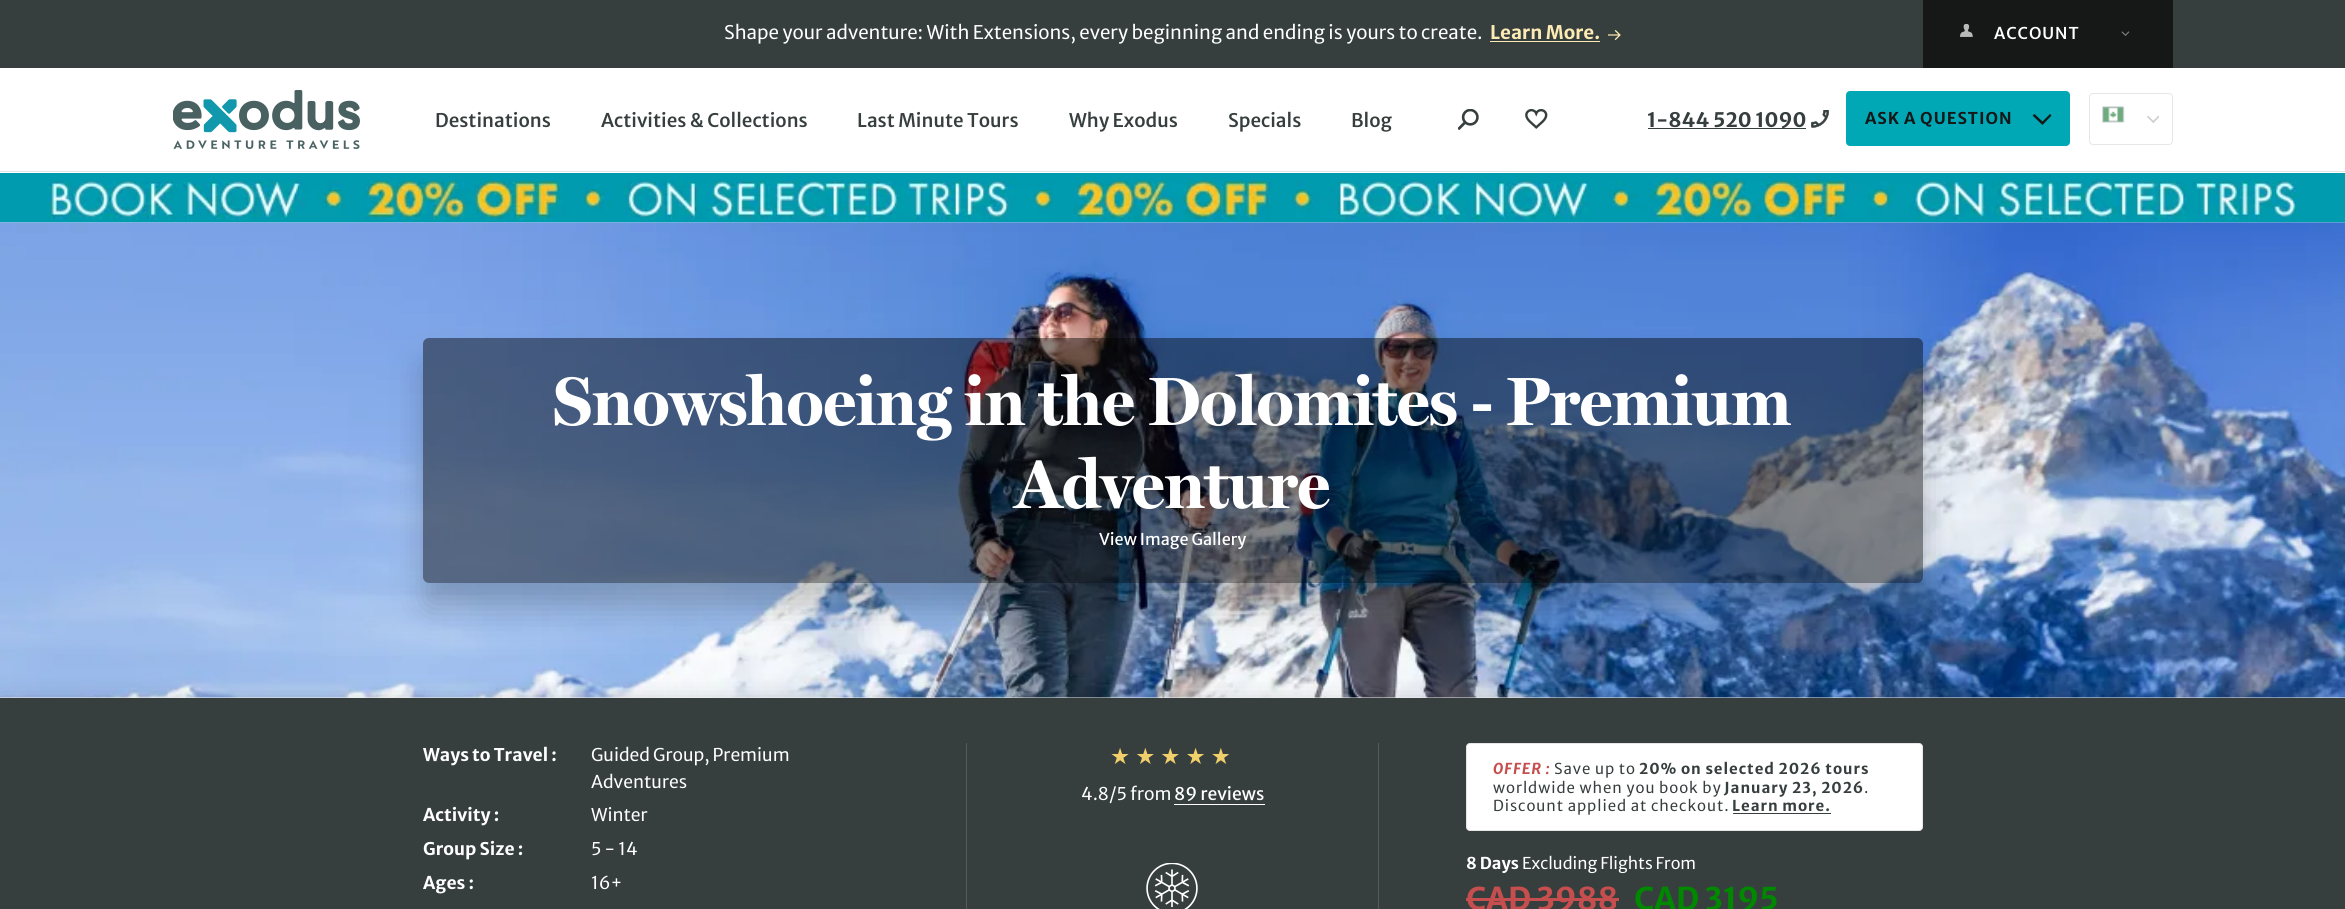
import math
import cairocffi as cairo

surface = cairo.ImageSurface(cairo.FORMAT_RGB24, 2345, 909)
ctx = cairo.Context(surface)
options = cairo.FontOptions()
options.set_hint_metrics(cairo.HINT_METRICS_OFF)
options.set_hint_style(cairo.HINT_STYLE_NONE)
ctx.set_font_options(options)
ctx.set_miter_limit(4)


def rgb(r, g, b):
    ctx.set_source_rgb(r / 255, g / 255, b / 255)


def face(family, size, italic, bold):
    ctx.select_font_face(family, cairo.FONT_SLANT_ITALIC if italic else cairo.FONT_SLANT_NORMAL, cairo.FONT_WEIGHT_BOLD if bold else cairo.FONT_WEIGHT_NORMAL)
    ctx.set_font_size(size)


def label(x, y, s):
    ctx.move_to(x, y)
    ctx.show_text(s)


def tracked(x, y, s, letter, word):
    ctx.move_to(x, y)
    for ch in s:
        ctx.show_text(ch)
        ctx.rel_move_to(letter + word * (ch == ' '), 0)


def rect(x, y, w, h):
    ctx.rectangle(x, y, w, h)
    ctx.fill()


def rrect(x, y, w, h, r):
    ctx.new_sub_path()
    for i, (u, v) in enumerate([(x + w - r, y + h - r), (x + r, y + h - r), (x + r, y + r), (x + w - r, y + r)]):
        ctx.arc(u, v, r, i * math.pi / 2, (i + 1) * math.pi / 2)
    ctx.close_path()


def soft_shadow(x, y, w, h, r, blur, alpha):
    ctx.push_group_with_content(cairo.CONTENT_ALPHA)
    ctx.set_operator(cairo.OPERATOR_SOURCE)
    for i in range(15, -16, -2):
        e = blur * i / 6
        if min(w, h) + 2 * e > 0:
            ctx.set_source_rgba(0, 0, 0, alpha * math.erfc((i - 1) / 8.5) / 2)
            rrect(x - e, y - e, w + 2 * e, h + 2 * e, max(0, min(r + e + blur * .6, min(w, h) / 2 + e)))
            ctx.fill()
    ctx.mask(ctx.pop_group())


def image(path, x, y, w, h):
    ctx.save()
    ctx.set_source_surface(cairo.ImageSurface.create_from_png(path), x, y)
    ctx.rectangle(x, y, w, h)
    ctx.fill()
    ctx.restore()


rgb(255, 255, 255)
ctx.paint()
rgb(55, 62, 62)
rect(0, 0, 2345, 68)
face('Merriweather Sans Light', 18.75, 0, 0)
rgb(255, 255, 255)
label(724, 39, 'Shape your adventure: With Extensions, every beginning and ending is yours to create.')
face('Merriweather Sans', 18.75, 0, 1)
rgb(253, 235, 180)
label(1490, 39, 'Learn More.')
rect(1490, 41, 110, 1)
image('image0.png', 1608, 30, 13, 10)
rgb(22, 23, 23)
rect(1923, 0, 250, 68)
image('image1.png', 1960, 24, 13, 13)
face('Merriweather Sans Medium', 16.25, 0, 0)
rgb(255, 255, 255)
tracked(1994, 39, 'ACCOUNT', 0.95, 0)
image('image2.png', 2121, 31, 9, 5)
rgb(230, 230, 230)
rect(0, 171, 2345, 1)
image('image3.png', 173, 90, 187, 59)
face('Merriweather Sans Medium', 18.75, 0, 0)
rgb(55, 62, 62)
label(435, 127, 'Destinations')
label(601, 127, 'Activities & Collections')
label(857, 127, 'Last Minute Tours')
label(1069, 127, 'Why Exodus')
label(1228, 127, 'Specials')
label(1351, 127, 'Blog')
image('image4.png', 1458, 109, 21, 21)
image('image5.png', 1525, 109, 23, 20)
rect(1648, 128, 158, 1)
face('Merriweather Sans', 20, 0, 1)
label(1647, 127, '1-844 520 1090')
image('image6.png', 1811, 110, 18, 18)
rgb(0, 168, 182)
rrect(1846, 91, 224, 55, 4)
ctx.fill()
face('Merriweather Sans', 16.25, 0, 1)
rgb(22, 23, 23)
tracked(1865, 124, 'ASK A QUESTION', 0.95, 0)
ctx.set_fill_rule(cairo.FILL_RULE_EVEN_ODD)
ctx.new_path()
ctx.move_to(2050, 114)
ctx.line_to(2051.5, 115.5)
ctx.line_to(2042.5, 125)
ctx.line_to(2032.5, 115.5)
ctx.line_to(2034.5, 114)
ctx.line_to(2042.5, 121.5)
ctx.close_path()
ctx.fill()
rrect(2089.5, 93.5, 83, 51, 3.5)
rgb(230, 230, 230)
ctx.set_line_width(1)
ctx.stroke()
image('image7.png', 2102, 106, 23, 17)
image('image8.png', 2147, 115, 12, 8)
image('image9.png', 0, 173, 2345, 50)
image('image10.png', 0, 222, 2345, 476)
ctx.save()
ctx.new_path()
ctx.move_to(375, 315)
ctx.line_to(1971, 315)
ctx.line_to(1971, 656)
ctx.line_to(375, 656)
ctx.close_path()
ctx.move_to(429, 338)
ctx.line_to(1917, 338)
ctx.curve_to(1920.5, 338, 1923, 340.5, 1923, 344)
ctx.line_to(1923, 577)
ctx.curve_to(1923, 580.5, 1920.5, 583, 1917, 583)
ctx.line_to(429, 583)
ctx.curve_to(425.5, 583, 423, 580.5, 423, 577)
ctx.line_to(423, 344)
ctx.curve_to(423, 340.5, 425.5, 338, 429, 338)
ctx.close_path()
ctx.clip()
rgb(0, 0, 0)
soft_shadow(423, 363, 1500, 245, 6, 15.5, 0.2)
ctx.restore()
ctx.set_source_rgba(0, 0, 0, 0.45)
rrect(423, 338, 1500, 245, 6)
ctx.fill()
face('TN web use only', 68.75, 0, 1)
rgb(255, 255, 255)
label(553, 425, 'Snowshoeing in the Dolomites - Premium')
label(1015, 508, 'Adventure')
face('Merriweather Sans', 16.25, 0, 0)
label(1099, 545, 'View Image Gallery')
rgb(0, 0, 0)
soft_shadow(0, 705, 2345, 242, 0, 12.5, 0.25)
rgb(55, 62, 62)
rect(0, 698, 2345, 211)
face('Merriweather Sans', 17.5, 0, 1)
rgb(255, 255, 255)
label(423, 761, 'Ways to Travel :')
face('Merriweather Sans Light', 17.5, 0, 0)
label(591, 761, 'Guided Group, Premium')
label(591, 788, 'Adventures')
face('Merriweather Sans', 17.5, 0, 1)
label(423, 821, 'Activity :')
face('Merriweather Sans Light', 17.5, 0, 0)
label(591, 821, 'Winter')
face('Merriweather Sans', 17.5, 0, 1)
label(423, 855, 'Group Size :')
face('Merriweather Sans Light', 17.5, 0, 0)
label(591, 855, '5 - 14')
face('Merriweather Sans', 17.5, 0, 1)
label(423, 889, 'Ages :')
face('Merriweather Sans Light', 17.5, 0, 0)
label(591, 889, '16+')
rgb(85, 91, 91)
rect(1378, 743, 1, 166)
rect(966, 743, 1, 166)
face('DejaVu Sans', 22.5, 0, 0)
gradient = cairo.LinearGradient(1110, 756, 1235, 756)
gradient.add_color_stop_rgba(0.94, 0.945, 0.812, 0.416, 1)
gradient.add_color_stop_rgba(0.94, 0.671, 0.698, 0.698, 1)
ctx.set_source(gradient)
tracked(1110, 764, '★★★★★', 5, 0)
face('Merriweather Sans Light', 17.5, 0, 0)
rgb(255, 255, 255)
label(1081, 800, '4.8/5 from')
rect(1174, 804, 91, 1)
face('Merriweather Sans', 17.5, 0, 0)
label(1174, 800, '89 reviews')
image('image11.png', 1146, 863, 52, 46)
rrect(1466.5, 743.5, 456, 87, 3.5)
ctx.fill_preserve()
rgb(230, 230, 230)
ctx.stroke()
face('Merriweather Sans', 15, 1, 1)
rgb(198, 78, 78)
tracked(1493, 774, 'OFFER :', 0.95, 0)
face('Merriweather Sans Light', 15, 0, 0)
rgb(55, 62, 62)
tracked(1554, 774, 'Save up to', 0.95, 0)
face('Merriweather Sans', 15, 0, 1)
tracked(1639, 774, '20% on selected 2026 tours', 0.95, 0)
face('Merriweather Sans Light', 15, 0, 0)
tracked(1493, 793, 'worldwide when you book by', 0.95, 0)
face('Merriweather Sans', 15, 0, 1)
tracked(1724, 793, 'January 23, 2026', 0.95, 0)
face('Merriweather Sans Light', 15, 0, 0)
tracked(1864, 793, '.', 0.95, 0)
tracked(1493, 811, 'Discount applied at checkout.', 0.95, 0)
face('Merriweather Sans', 15, 0, 1)
tracked(1732, 811, 'Learn more.', 0.95, 0)
rect(1733, 813, 98, 1)
face('Merriweather Sans', 16.25, 0, 1)
rgb(255, 255, 255)
label(1466, 869, '8 Days')
face('Merriweather Sans Light', 16.25, 0, 0)
label(1522, 869, 'Excluding Flights From')
face('Merriweather Sans', 31.25, 0, 1)
rgb(198, 78, 78)
label(1466, 910, 'CAD 3988')
rect(1466, 898, 153, 3)
rgb(0, 136, 0)
label(1634, 910, 'CAD 3195')
surface.write_to_png('render.png')
